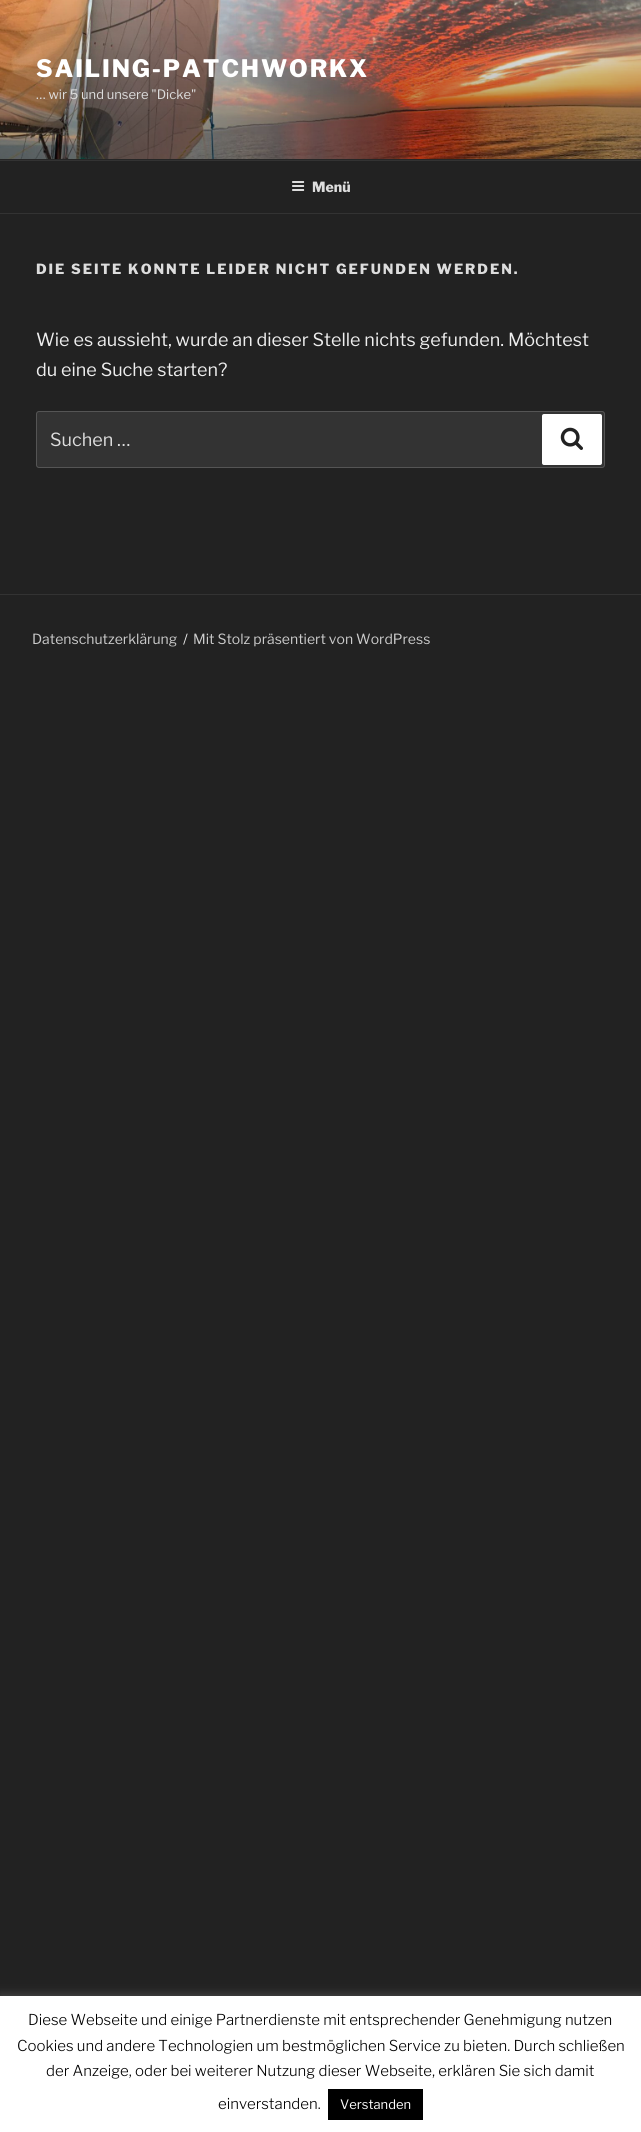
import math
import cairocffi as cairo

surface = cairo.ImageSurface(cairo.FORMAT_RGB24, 641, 2132)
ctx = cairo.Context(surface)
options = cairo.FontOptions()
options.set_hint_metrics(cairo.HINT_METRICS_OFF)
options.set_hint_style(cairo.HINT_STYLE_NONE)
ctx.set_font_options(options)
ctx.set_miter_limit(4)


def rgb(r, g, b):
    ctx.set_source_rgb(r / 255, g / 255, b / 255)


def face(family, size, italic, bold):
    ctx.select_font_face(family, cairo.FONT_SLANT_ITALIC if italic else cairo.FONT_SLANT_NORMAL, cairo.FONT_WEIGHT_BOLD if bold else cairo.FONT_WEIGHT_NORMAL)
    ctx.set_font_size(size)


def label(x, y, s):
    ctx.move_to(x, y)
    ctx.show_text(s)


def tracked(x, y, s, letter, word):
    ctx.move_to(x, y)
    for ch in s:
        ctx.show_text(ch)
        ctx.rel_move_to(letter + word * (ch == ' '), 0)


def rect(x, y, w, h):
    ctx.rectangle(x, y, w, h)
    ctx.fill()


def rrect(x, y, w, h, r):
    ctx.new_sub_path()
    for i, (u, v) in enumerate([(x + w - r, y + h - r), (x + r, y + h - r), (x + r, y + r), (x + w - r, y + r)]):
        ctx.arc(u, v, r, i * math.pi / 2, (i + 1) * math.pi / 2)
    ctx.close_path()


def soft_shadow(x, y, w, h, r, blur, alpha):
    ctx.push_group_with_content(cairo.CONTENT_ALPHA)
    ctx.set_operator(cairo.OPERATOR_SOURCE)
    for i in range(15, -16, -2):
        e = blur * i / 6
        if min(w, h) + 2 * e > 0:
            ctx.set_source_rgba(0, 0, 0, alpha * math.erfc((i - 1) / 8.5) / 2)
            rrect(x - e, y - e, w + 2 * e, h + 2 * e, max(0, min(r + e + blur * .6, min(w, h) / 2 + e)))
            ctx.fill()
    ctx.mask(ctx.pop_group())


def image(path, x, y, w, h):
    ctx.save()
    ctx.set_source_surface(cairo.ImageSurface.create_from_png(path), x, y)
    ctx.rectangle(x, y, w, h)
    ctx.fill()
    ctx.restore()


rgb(34, 34, 34)
ctx.paint()
rgb(38, 38, 38)
rect(0, 159, 641, 1)
image('image0.png', 0, 0, 641, 159)
face('Libre Franklin Thin', 24, 0, 0)
rgb(255, 255, 255)
tracked(36, 77, 'SAILING-PATCHWORKX', 1.9, 0)
face('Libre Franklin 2 Thin', 13, 0, 0)
rgb(221, 221, 221)
label(36, 99, '… wir 5 und unsere "Dicke"')
rgb(51, 51, 51)
rect(0, 160, 641, 1)
rect(0, 213, 641, 1)
image('image1.png', 292, 181, 13, 10)
face('Libre Franklin Thin', 14, 0, 0)
rgb(221, 221, 221)
label(312, 192, 'Menü')
tracked(36, 274, 'DIE SEITE KONNTE LEIDER NICHT GEFUNDEN WERDEN.', 1.95, 0)
face('Libre Franklin 2 Thin', 18, 0, 0)
rgb(238, 238, 238)
label(36, 346, 'Wie es aussieht, wurde an dieser Stelle nichts gefunden. Möchtest')
label(36, 376, 'du eine Suche starten?')
rgb(51, 51, 51)
rrect(36.5, 411.5, 568, 56, 2.5)
ctx.fill_preserve()
rgb(85, 85, 85)
ctx.set_line_width(1)
ctx.stroke()
rgb(221, 221, 221)
label(50, 446, 'Suchen …')
rgb(255, 255, 255)
rrect(542, 414, 60, 51, 2)
ctx.fill()
image('image2.png', 560, 427, 23, 23)
rgb(51, 51, 51)
rect(0, 594, 641, 1)
face('Libre Franklin 2 Thin', 14, 0, 0)
rgb(204, 204, 204)
label(32, 644, 'Datenschutzerklärung')
rgb(238, 238, 238)
label(183, 644, '/')
rgb(204, 204, 204)
label(193, 644, 'Mit Stolz präsentiert von WordPress')
rgb(172, 171, 171)
soft_shadow(0, 1995, 641, 136, 0, 5, 0.3)
rgb(255, 255, 255)
rect(0, 1996, 641, 136)
face('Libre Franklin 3 Thin', 15, 0, 0)
rgb(0, 0, 0)
label(28, 2025, 'Diese Webseite und einige Partnerdienste mit entsprechender Genehmigung nutzen')
label(17, 2051, 'Cookies und andere Technologien um bestmöglichen Service zu bieten. Durch schließen')
label(46, 2076, 'der Anzeige, oder bei weiterer Nutzung dieser Webseite, erklären Sie sich damit')
label(218, 2109, 'einverstanden.')
rect(328, 2089, 95, 31)
face('Libre Franklin 2 Thin', 13, 0, 0)
rgb(255, 255, 255)
label(340, 2109, 'Verstanden')
surface.write_to_png('render.png')
